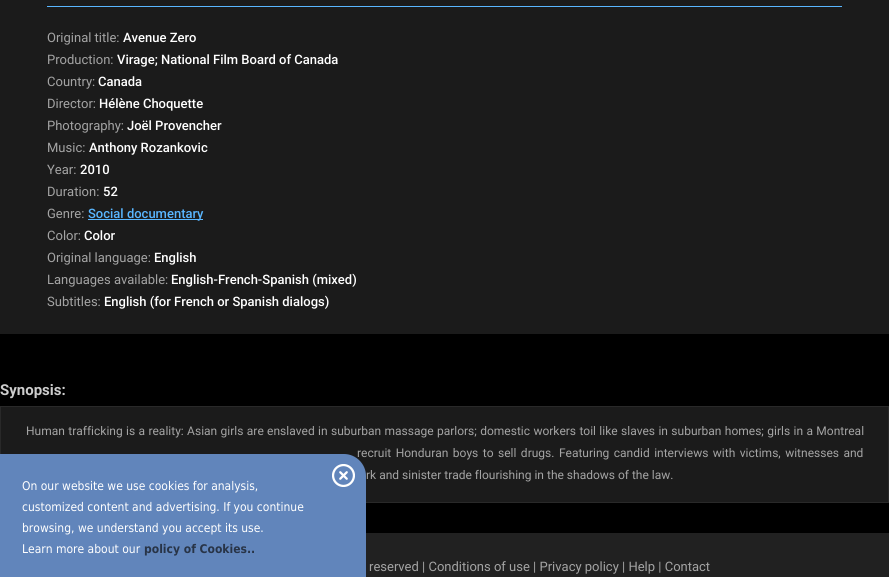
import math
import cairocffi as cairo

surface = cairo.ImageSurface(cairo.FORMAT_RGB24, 889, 577)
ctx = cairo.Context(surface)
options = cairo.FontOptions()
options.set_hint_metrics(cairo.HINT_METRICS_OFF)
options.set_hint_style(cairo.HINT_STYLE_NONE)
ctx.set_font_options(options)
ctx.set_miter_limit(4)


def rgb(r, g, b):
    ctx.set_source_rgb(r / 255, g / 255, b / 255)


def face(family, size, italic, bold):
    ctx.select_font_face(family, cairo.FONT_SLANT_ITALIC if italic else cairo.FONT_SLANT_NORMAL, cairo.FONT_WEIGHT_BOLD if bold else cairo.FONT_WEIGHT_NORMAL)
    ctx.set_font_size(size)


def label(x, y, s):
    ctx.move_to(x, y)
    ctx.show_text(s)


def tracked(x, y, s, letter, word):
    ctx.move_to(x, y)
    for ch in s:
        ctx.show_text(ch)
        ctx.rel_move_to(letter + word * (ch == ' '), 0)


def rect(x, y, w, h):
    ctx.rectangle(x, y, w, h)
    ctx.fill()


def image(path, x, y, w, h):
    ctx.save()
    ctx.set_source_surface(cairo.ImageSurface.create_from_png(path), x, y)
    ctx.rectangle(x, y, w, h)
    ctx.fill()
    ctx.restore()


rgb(0, 0, 0)
ctx.paint()
rgb(27, 27, 27)
rect(0, 0, 889, 334)
rgb(89, 182, 255)
rect(47, 6, 795, 1)
face('Roboto', 13, 0, 0)
rgb(164, 164, 164)
label(47, 42, 'Original title:')
face('Roboto Medium', 13, 0, 0)
rgb(255, 255, 255)
label(123, 42, 'Avenue Zero')
face('Roboto', 13, 0, 0)
rgb(164, 164, 164)
label(47, 64, 'Production:')
face('Roboto Medium', 13, 0, 0)
rgb(255, 255, 255)
label(117, 64, 'Virage; National Film Board of Canada')
face('Roboto', 13, 0, 0)
rgb(164, 164, 164)
label(47, 86, 'Country:')
face('Roboto Medium', 13, 0, 0)
rgb(255, 255, 255)
label(98, 86, 'Canada')
face('Roboto', 13, 0, 0)
rgb(164, 164, 164)
label(47, 108, 'Director:')
face('Roboto Medium', 13, 0, 0)
rgb(255, 255, 255)
label(99, 108, 'Hélène Choquette')
face('Roboto', 13, 0, 0)
rgb(164, 164, 164)
label(47, 130, 'Photography:')
face('Roboto Medium', 13, 0, 0)
rgb(255, 255, 255)
label(127, 130, 'Joël Provencher')
face('Roboto', 13, 0, 0)
rgb(164, 164, 164)
label(47, 152, 'Music:')
face('Roboto Medium', 13, 0, 0)
rgb(255, 255, 255)
label(89, 152, 'Anthony Rozankovic')
face('Roboto', 13, 0, 0)
rgb(164, 164, 164)
label(47, 174, 'Year:')
face('Roboto Medium', 13, 0, 0)
rgb(255, 255, 255)
label(80, 174, '2010')
face('Roboto', 13, 0, 0)
rgb(164, 164, 164)
label(47, 196, 'Duration:')
face('Roboto Medium', 13, 0, 0)
rgb(255, 255, 255)
label(103, 196, '52')
face('Roboto', 13, 0, 0)
rgb(164, 164, 164)
label(47, 218, 'Genre:')
rgb(89, 182, 255)
rect(88, 219, 115, 1)
face('Roboto Medium', 13, 0, 0)
label(88, 218, 'Social documentary')
face('Roboto', 13, 0, 0)
rgb(164, 164, 164)
label(47, 240, 'Color:')
face('Roboto Medium', 13, 0, 0)
rgb(255, 255, 255)
label(84, 240, 'Color')
face('Roboto', 13, 0, 0)
rgb(164, 164, 164)
label(47, 262, 'Original language:')
face('Roboto Medium', 13, 0, 0)
rgb(255, 255, 255)
label(154, 262, 'English')
face('Roboto', 13, 0, 0)
rgb(164, 164, 164)
label(47, 284, 'Languages available:')
face('Roboto Medium', 13, 0, 0)
rgb(255, 255, 255)
label(171, 284, 'English-French-Spanish (mixed)')
face('Roboto', 13, 0, 0)
rgb(164, 164, 164)
label(47, 306, 'Subtitles:')
face('Roboto Medium', 13, 0, 0)
rgb(255, 255, 255)
label(104, 306, 'English (for French or Spanish dialogs)')
face('Roboto', 15, 0, 1)
rgb(205, 205, 205)
label(0, 395, 'Synopsis:')
rgb(27, 27, 27)
ctx.rectangle(0.5, 406.5, 888, 96)
ctx.fill_preserve()
rgb(41, 41, 41)
ctx.set_line_width(1)
ctx.stroke()
face('Roboto', 12, 0, 0)
rgb(164, 164, 164)
tracked(26, 435, 'Human trafficking is a reality: Asian girls are enslaved in suburban massage parlors; domestic workers toil like slaves in suburban homes; girls in a Montreal', 0, 0.4)
tracked(357, 457, 'recruit Honduran boys to sell drugs. Featuring candid interviews with victims, witnesses and', 0, 1.5)
label(366, 479, 'rk and sinister trade flourishing in the shadows of the law.')
rgb(97, 133, 187)
ctx.new_path()
ctx.move_to(0, 454)
ctx.line_to(344, 454)
ctx.curve_to(356, 454, 366, 464, 366, 476)
ctx.line_to(366, 577)
ctx.line_to(0, 577)
ctx.close_path()
ctx.fill()
image('image0.png', 332, 464, 23, 23)
face('DejaVu Sans', 12, 0, 0)
rgb(255, 255, 255)
label(22, 490, 'On our website we use cookies for analysis,')
label(22, 511, 'customized content and advertising. If you continue')
label(22, 532, 'browsing, we understand you accept its use.')
label(22, 553, 'Learn more about our')
face('DejaVu Sans', 12, 0, 1)
rgb(40, 52, 71)
label(144, 553, 'policy of Cookies..')
rgb(33, 33, 33)
rect(366, 533, 523, 44)
face('Roboto', 13, 0, 0)
rgb(164, 164, 164)
label(369, 571, 'reserved | Conditions of use | Privacy policy | Help | Contact')
surface.write_to_png('render.png')
